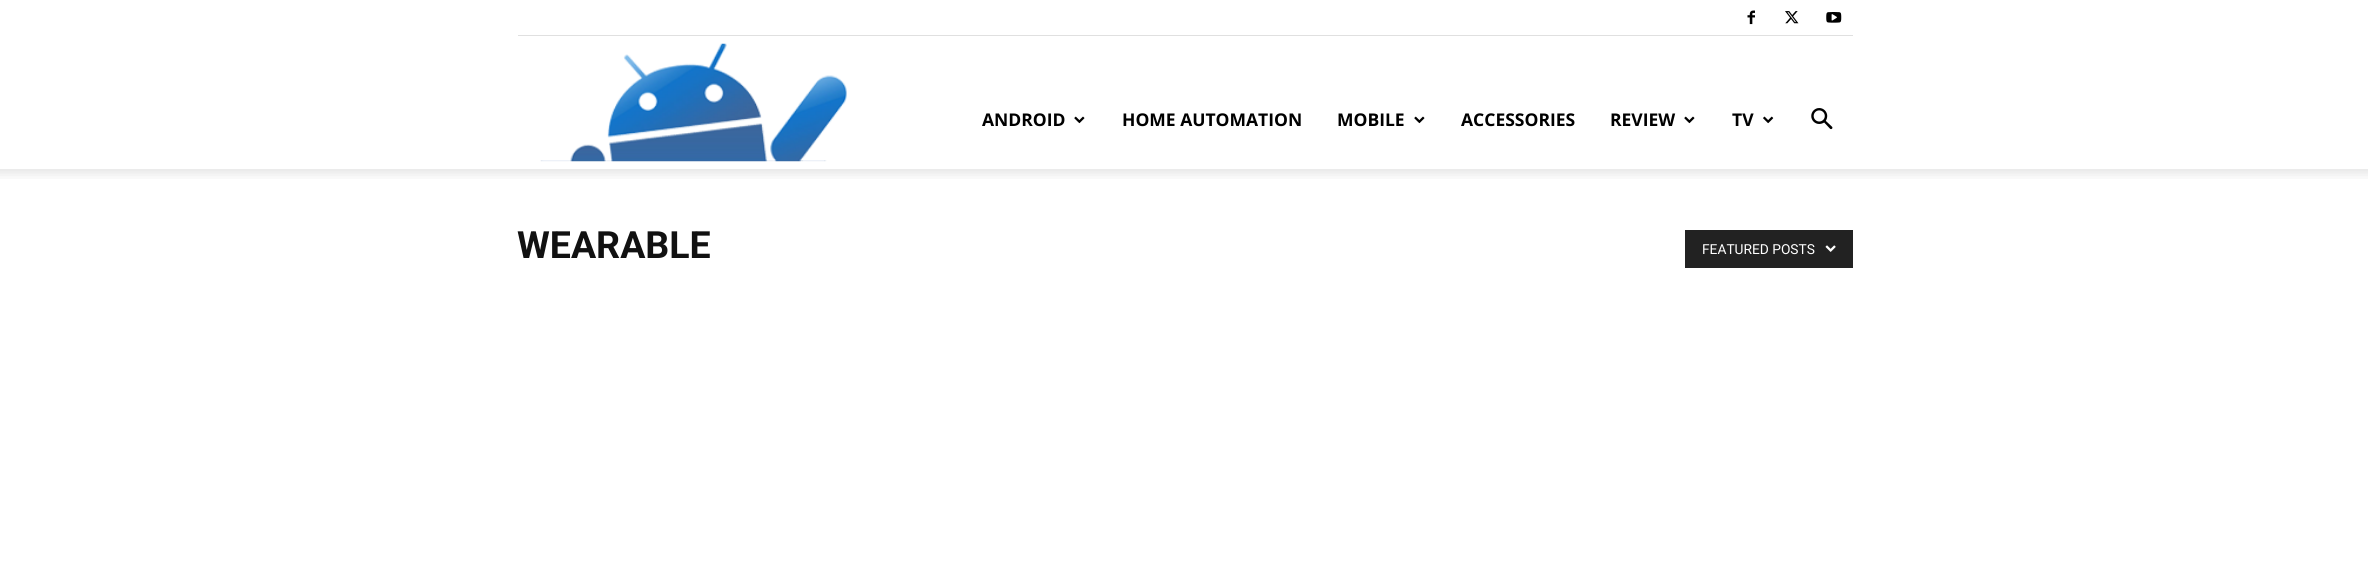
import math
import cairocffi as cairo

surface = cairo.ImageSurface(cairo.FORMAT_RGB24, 2368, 565)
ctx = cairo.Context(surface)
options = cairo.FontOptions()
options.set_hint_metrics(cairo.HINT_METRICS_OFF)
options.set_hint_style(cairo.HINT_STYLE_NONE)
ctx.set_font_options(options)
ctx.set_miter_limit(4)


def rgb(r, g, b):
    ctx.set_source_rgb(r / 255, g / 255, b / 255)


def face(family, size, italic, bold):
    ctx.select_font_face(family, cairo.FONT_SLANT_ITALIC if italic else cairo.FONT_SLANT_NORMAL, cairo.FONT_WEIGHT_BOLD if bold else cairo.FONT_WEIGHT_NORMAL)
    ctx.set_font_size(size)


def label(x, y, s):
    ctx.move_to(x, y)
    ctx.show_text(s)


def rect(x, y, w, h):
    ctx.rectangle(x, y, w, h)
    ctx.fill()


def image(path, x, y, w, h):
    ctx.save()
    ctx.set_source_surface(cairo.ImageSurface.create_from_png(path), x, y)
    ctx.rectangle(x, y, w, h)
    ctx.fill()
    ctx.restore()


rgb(255, 255, 255)
ctx.paint()
rgb(224, 224, 224)
rect(518, 35, 1335, 1)
image('image0.png', 1747, 10, 8, 15)
image('image1.png', 1785, 11, 14, 13)
image('image2.png', 1826, 12, 16, 11)
image('image3.png', 540, 43, 307, 119)
face('Open Sans', 17.5, 0, 1)
rgb(0, 0, 0)
label(982, 126, 'ANDROID')
image('image4.png', 1074, 116, 11, 8)
label(1122, 126, 'HOME AUTOMATION')
label(1337, 126, 'MOBILE')
image('image4.png', 1414, 116, 11, 8)
label(1461, 126, 'ACCESSORIES')
label(1610, 126, 'REVIEW')
image('image4.png', 1684, 116, 11, 8)
label(1732, 126, 'TV')
image('image5.png', 1763, 116, 11, 8)
image('image6.png', 1811, 108, 22, 22)
image('image7.png', 0, 169, 2368, 10)
face('Roboto', 37.5, 0, 1)
rgb(17, 17, 17)
label(517, 258, 'WEARABLE')
rgb(34, 34, 34)
rect(1685, 230, 168, 38)
face('Roboto', 13.75, 0, 0)
rgb(255, 255, 255)
label(1702, 254, 'FEATURED POSTS')
image('image8.png', 1825, 245, 11, 7)
surface.write_to_png('render.png')
